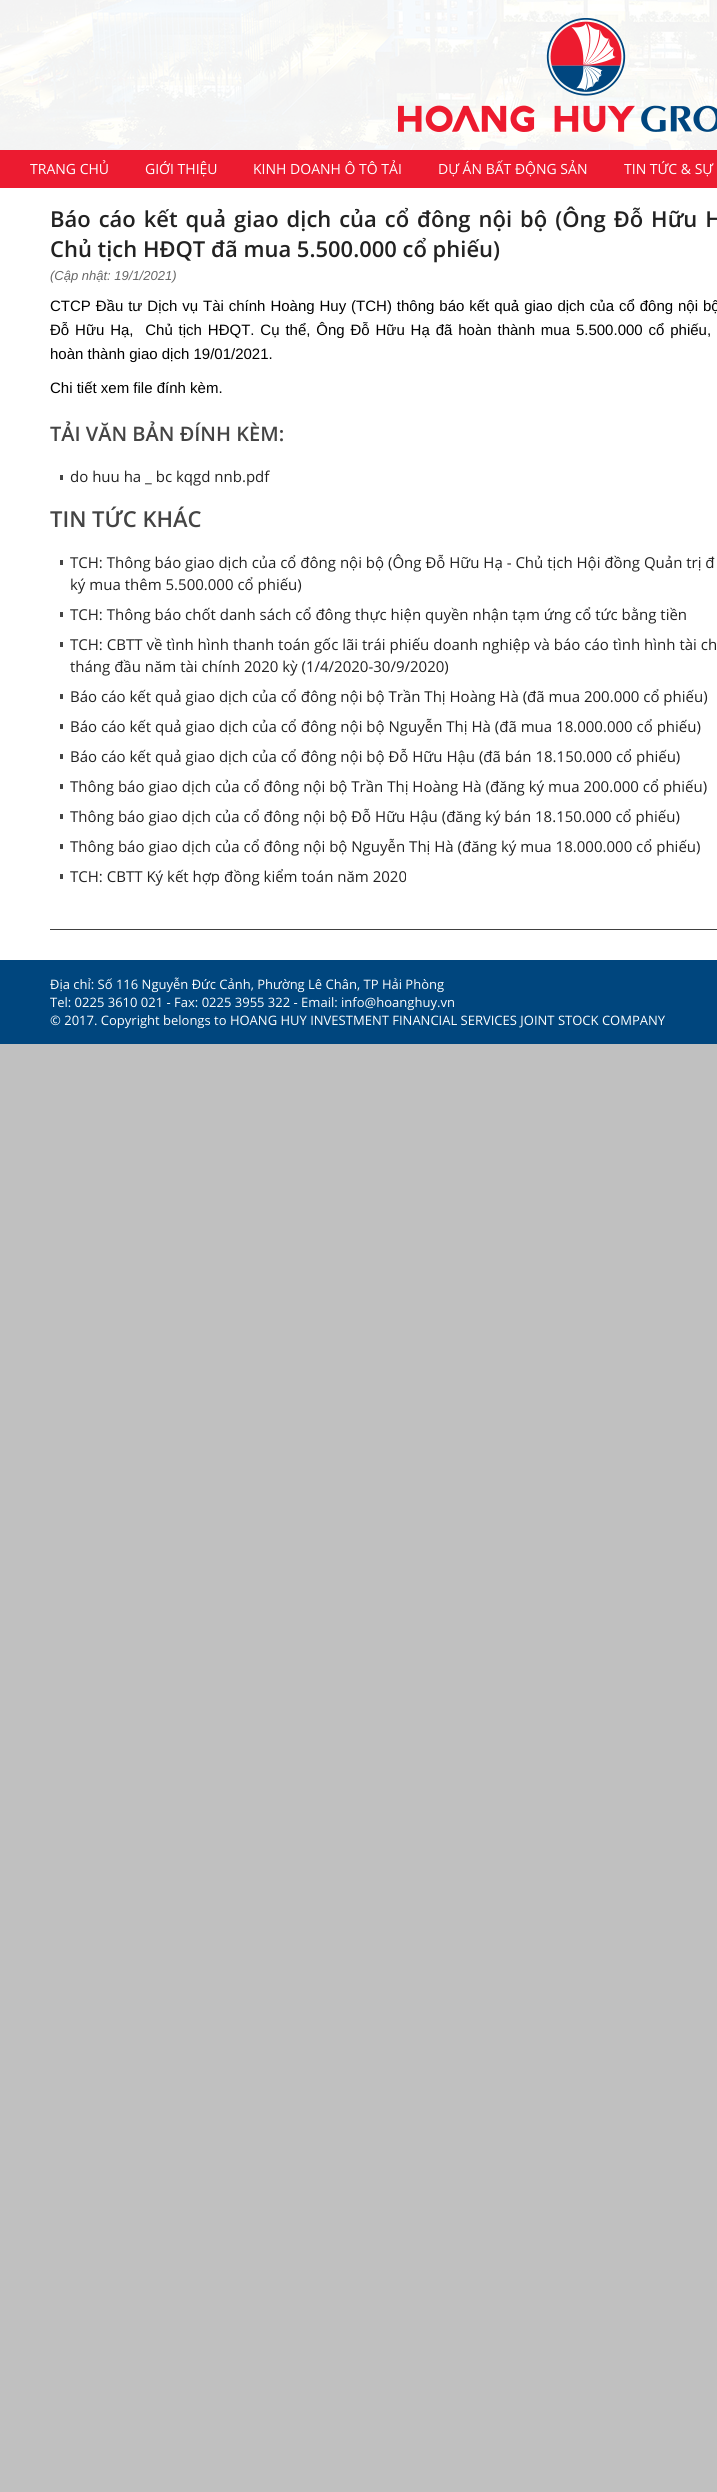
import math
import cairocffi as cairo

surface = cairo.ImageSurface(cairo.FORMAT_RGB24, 717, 2492)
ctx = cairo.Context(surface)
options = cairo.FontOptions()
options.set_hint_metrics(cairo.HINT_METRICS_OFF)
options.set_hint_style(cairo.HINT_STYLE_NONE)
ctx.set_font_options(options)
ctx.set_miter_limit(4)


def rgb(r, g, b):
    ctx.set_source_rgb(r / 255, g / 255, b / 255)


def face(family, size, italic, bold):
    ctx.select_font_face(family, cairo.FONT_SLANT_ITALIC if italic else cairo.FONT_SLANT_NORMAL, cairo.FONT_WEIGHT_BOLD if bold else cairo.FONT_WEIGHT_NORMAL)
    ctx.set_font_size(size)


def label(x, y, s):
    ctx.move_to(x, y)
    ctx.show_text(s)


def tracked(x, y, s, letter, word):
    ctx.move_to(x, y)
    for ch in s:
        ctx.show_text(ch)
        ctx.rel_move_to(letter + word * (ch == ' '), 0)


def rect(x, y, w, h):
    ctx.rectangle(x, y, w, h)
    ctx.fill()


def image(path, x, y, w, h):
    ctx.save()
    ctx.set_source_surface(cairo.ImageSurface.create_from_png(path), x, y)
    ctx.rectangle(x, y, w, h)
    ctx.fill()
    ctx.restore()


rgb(192, 192, 192)
ctx.paint()
image('image0.png', 0, 0, 717, 150)
rgb(236, 27, 48)
rect(0, 150, 717, 38)
face('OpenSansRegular', 14, 0, 0)
rgb(255, 255, 255)
label(30, 174, 'TRANG CHỦ')
label(145, 174, 'GIỚI THIỆU')
label(253, 174, 'KINH DOANH Ô TÔ TẢI')
label(438, 174, 'DỰ ÁN BẤT ĐỘNG SẢN')
label(624, 174, 'TIN TỨC & SỰ')
rect(0, 188, 717, 772)
rgb(64, 64, 64)
rect(50, 929, 667, 1)
face('Open Sans SemiBold', 22, 0, 0)
rgb(34, 34, 34)
tracked(50, 227, 'Báo cáo kết quả giao dịch của cổ đông nội bộ (Ông Đỗ Hữu H', 0, 2.25)
label(50, 257, 'Chủ tịch HĐQT đã mua 5.500.000 cổ phiếu)')
face('Liberation Sans', 13, 1, 0)
rgb(102, 102, 102)
label(50, 280, '(Cập nhật: 19/1/2021)')
face('Liberation Sans', 15, 0, 0)
rgb(0, 0, 0)
tracked(50, 311, 'CTCP Đầu tư Dịch vụ Tài chính Hoàng Huy (TCH) thông báo kết quả giao dịch của cổ đông nội bộ', 0, 0.75)
tracked(50, 335, 'Đỗ Hữu Hạ,  Chủ tịch HĐQT. Cụ thể, Ông Đỗ Hữu Hạ đã hoàn thành mua 5.500.000 cổ phiếu,', 0, 1.7)
label(50, 359, 'hoàn thành giao dịch 19/01/2021.')
label(50, 393, 'Chi tiết xem file đính kèm.')
face('Open Sans SemiBold', 20, 0, 0)
rgb(68, 68, 68)
label(50, 441, 'TẢI VĂN BẢN ĐÍNH KÈM:')
rect(60, 475, 3, 5)
face('OpenSansRegular', 15, 0, 0)
rgb(34, 34, 34)
label(70, 482, 'do huu ha _ bc kqgd nnb.pdf')
face('Open Sans SemiBold', 22, 0, 0)
rgb(68, 68, 68)
label(50, 527, 'TIN TỨC KHÁC')
rect(60, 560, 3, 5)
face('OpenSansRegular', 15, 0, 0)
rgb(34, 34, 34)
label(70, 568, 'TCH: Thông báo giao dịch của cổ đông nội bộ (Ông Đỗ Hữu Hạ - Chủ tịch Hội đồng Quản trị đ')
label(70, 590, 'ký mua thêm 5.500.000 cổ phiếu)')
rgb(68, 68, 68)
rect(60, 612, 3, 5)
rgb(34, 34, 34)
label(70, 620, 'TCH: Thông báo chốt danh sách cổ đông thực hiện quyền nhận tạm ứng cổ tức bằng tiền')
rgb(68, 68, 68)
rect(60, 642, 3, 5)
rgb(34, 34, 34)
label(70, 650, 'TCH: CBTT về tình hình thanh toán gốc lãi trái phiếu doanh nghiệp và báo cáo tình hình tài ch')
label(70, 672, 'tháng đầu năm tài chính 2020 kỳ (1/4/2020-30/9/2020)')
rgb(68, 68, 68)
rect(60, 694, 3, 5)
rgb(34, 34, 34)
label(70, 702, 'Báo cáo kết quả giao dịch của cổ đông nội bộ Trần Thị Hoàng Hà (đã mua 200.000 cổ phiếu)')
rgb(68, 68, 68)
rect(60, 724, 3, 5)
rgb(34, 34, 34)
label(70, 732, 'Báo cáo kết quả giao dịch của cổ đông nội bộ Nguyễn Thị Hà (đã mua 18.000.000 cổ phiếu)')
rgb(68, 68, 68)
rect(60, 754, 3, 5)
rgb(34, 34, 34)
label(70, 762, 'Báo cáo kết quả giao dịch của cổ đông nội bộ Đỗ Hữu Hậu (đã bán 18.150.000 cổ phiếu)')
rgb(68, 68, 68)
rect(60, 784, 3, 5)
rgb(34, 34, 34)
label(70, 792, 'Thông báo giao dịch của cổ đông nội bộ Trần Thị Hoàng Hà (đăng ký mua 200.000 cổ phiếu)')
rgb(68, 68, 68)
rect(60, 814, 3, 5)
rgb(34, 34, 34)
label(70, 822, 'Thông báo giao dịch của cổ đông nội bộ Đỗ Hữu Hậu (đăng ký bán 18.150.000 cổ phiếu)')
rgb(68, 68, 68)
rect(60, 844, 3, 5)
rgb(34, 34, 34)
label(70, 852, 'Thông báo giao dịch của cổ đông nội bộ Nguyễn Thị Hà (đăng ký mua 18.000.000 cổ phiếu)')
rgb(68, 68, 68)
rect(60, 874, 3, 5)
rgb(34, 34, 34)
label(70, 882, 'TCH: CBTT Ký kết hợp đồng kiểm toán năm 2020')
rgb(0, 70, 126)
rect(0, 960, 717, 84)
face('OpenSansRegular', 13, 0, 0)
rgb(255, 255, 255)
label(50, 989, 'Địa chỉ: Số 116 Nguyễn Đức Cảnh, Phường Lê Chân, TP Hải Phòng')
label(50, 1007, 'Tel: 0225 3610 021 - Fax: 0225 3955 322 - Email: info@hoanghuy.vn')
label(50, 1025, '© 2017. Copyright belongs to HOANG HUY INVESTMENT FINANCIAL SERVICES JOINT STOCK COMPANY')
surface.write_to_png('render.png')
